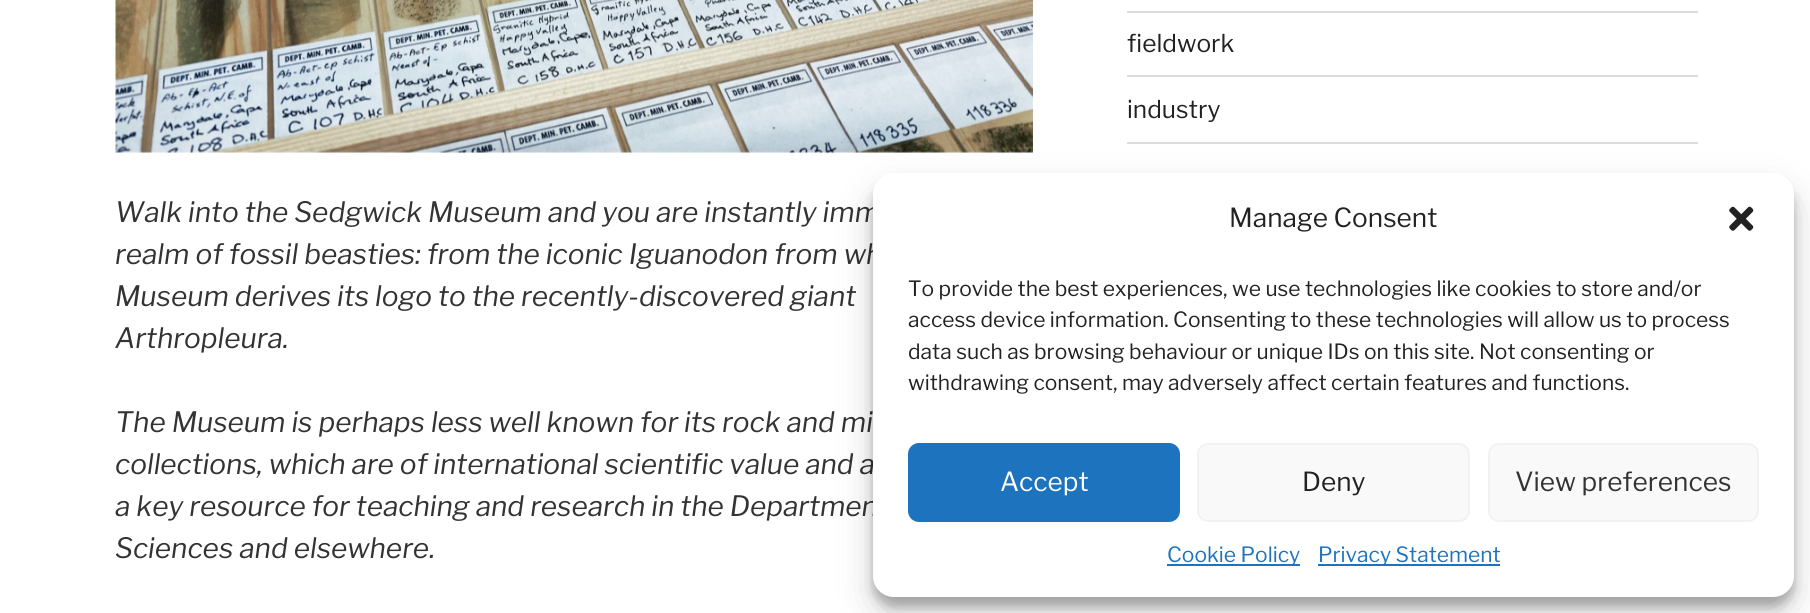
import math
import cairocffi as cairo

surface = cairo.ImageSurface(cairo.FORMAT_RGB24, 1810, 613)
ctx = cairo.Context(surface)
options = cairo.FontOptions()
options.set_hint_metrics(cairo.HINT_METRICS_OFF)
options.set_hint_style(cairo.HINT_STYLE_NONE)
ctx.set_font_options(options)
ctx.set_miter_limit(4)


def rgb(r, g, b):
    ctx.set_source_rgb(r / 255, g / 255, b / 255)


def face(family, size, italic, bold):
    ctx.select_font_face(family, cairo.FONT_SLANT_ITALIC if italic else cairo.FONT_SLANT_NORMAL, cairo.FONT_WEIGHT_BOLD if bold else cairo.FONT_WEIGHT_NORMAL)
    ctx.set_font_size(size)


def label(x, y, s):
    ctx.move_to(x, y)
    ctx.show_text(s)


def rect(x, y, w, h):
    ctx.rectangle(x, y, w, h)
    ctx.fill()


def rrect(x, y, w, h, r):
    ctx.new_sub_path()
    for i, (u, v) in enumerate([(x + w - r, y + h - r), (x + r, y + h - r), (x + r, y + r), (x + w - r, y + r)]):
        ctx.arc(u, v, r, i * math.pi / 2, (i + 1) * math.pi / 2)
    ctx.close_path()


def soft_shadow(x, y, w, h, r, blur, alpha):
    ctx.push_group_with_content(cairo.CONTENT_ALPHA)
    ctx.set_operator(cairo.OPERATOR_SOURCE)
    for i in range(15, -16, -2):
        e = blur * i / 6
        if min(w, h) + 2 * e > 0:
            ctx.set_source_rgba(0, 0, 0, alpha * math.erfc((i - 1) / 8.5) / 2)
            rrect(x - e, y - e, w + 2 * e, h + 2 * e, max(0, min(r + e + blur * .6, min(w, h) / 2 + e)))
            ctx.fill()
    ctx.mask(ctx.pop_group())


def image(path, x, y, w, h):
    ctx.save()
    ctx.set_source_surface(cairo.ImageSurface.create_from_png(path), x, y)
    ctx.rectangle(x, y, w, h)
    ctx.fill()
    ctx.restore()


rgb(255, 255, 255)
ctx.paint()
rgb(221, 221, 221)
rect(1127, 11, 571, 2)
rect(1127, 75, 571, 2)
face('Libre Franklin Thin', 24.5, 0, 0)
rgb(34, 34, 34)
label(1127, 52, 'fieldwork')
rgb(221, 221, 221)
rect(1127, 142, 571, 2)
rgb(34, 34, 34)
label(1127, 118, 'industry')
image('image0.png', 115, 0, 918, 153)
face('Libre Franklin Thin', 28, 1, 0)
rgb(51, 51, 51)
label(115, 222, 'Walk into the Sedgwick Museum and you are instantly imm')
label(115, 264, 'realm of fossil beasties: from the iconic Iguanodon from wh')
label(115, 306, 'Museum derives its logo to the recently-discovered giant')
label(115, 348, 'Arthropleura.')
label(115, 432, 'The Museum is perhaps less well known for its rock and mi')
label(115, 474, 'collections, which are of international scientific value and a')
label(115, 516, 'a key resource for teaching and research in the Departmen')
label(115, 558, 'Sciences and elsewhere.')
rgb(0, 0, 0)
soft_shadow(873, 184, 921, 423, 21, 5, 0.23)
soft_shadow(873, 191, 921, 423, 21, 17.5, 0.19)
rgb(255, 255, 255)
rrect(873, 173, 921, 424, 21)
ctx.fill()
face('Libre Franklin Thin', 26.25, 0, 0)
rgb(34, 34, 34)
label(1229, 227, 'Manage Consent')
image('image1.png', 1729, 206, 25, 25)
face('Libre Franklin Thin', 21, 0, 0)
label(908, 296, 'To provide the best experiences, we use technologies like cookies to store and/or')
label(908, 327, 'access device information. Consenting to these technologies will allow us to process')
label(908, 359, 'data such as browsing behaviour or unique IDs on this site. Not consenting or')
label(908, 390, 'withdrawing consent, may adversely affect certain features and functions.')
rgb(30, 115, 190)
rrect(909, 444, 270, 77, 10)
ctx.fill_preserve()
ctx.stroke()
face('Libre Franklin Thin', 26.25, 0, 0)
rgb(255, 255, 255)
label(1000, 491, 'Accept')
rgb(249, 249, 249)
rrect(1198, 444, 271, 77, 10)
ctx.fill_preserve()
rgb(242, 242, 242)
ctx.stroke()
rgb(34, 34, 34)
label(1302, 491, 'Deny')
rgb(249, 249, 249)
rrect(1489, 444, 269, 77, 10)
ctx.fill_preserve()
rgb(242, 242, 242)
ctx.stroke()
rgb(51, 51, 51)
label(1515, 491, 'View preferences')
rgb(30, 115, 190)
rect(1167, 564, 133, 2)
face('Libre Franklin Thin', 21, 0, 0)
label(1167, 562, 'Cookie Policy')
rect(1318, 564, 182, 2)
label(1318, 562, 'Privacy Statement')
surface.write_to_png('render.png')
